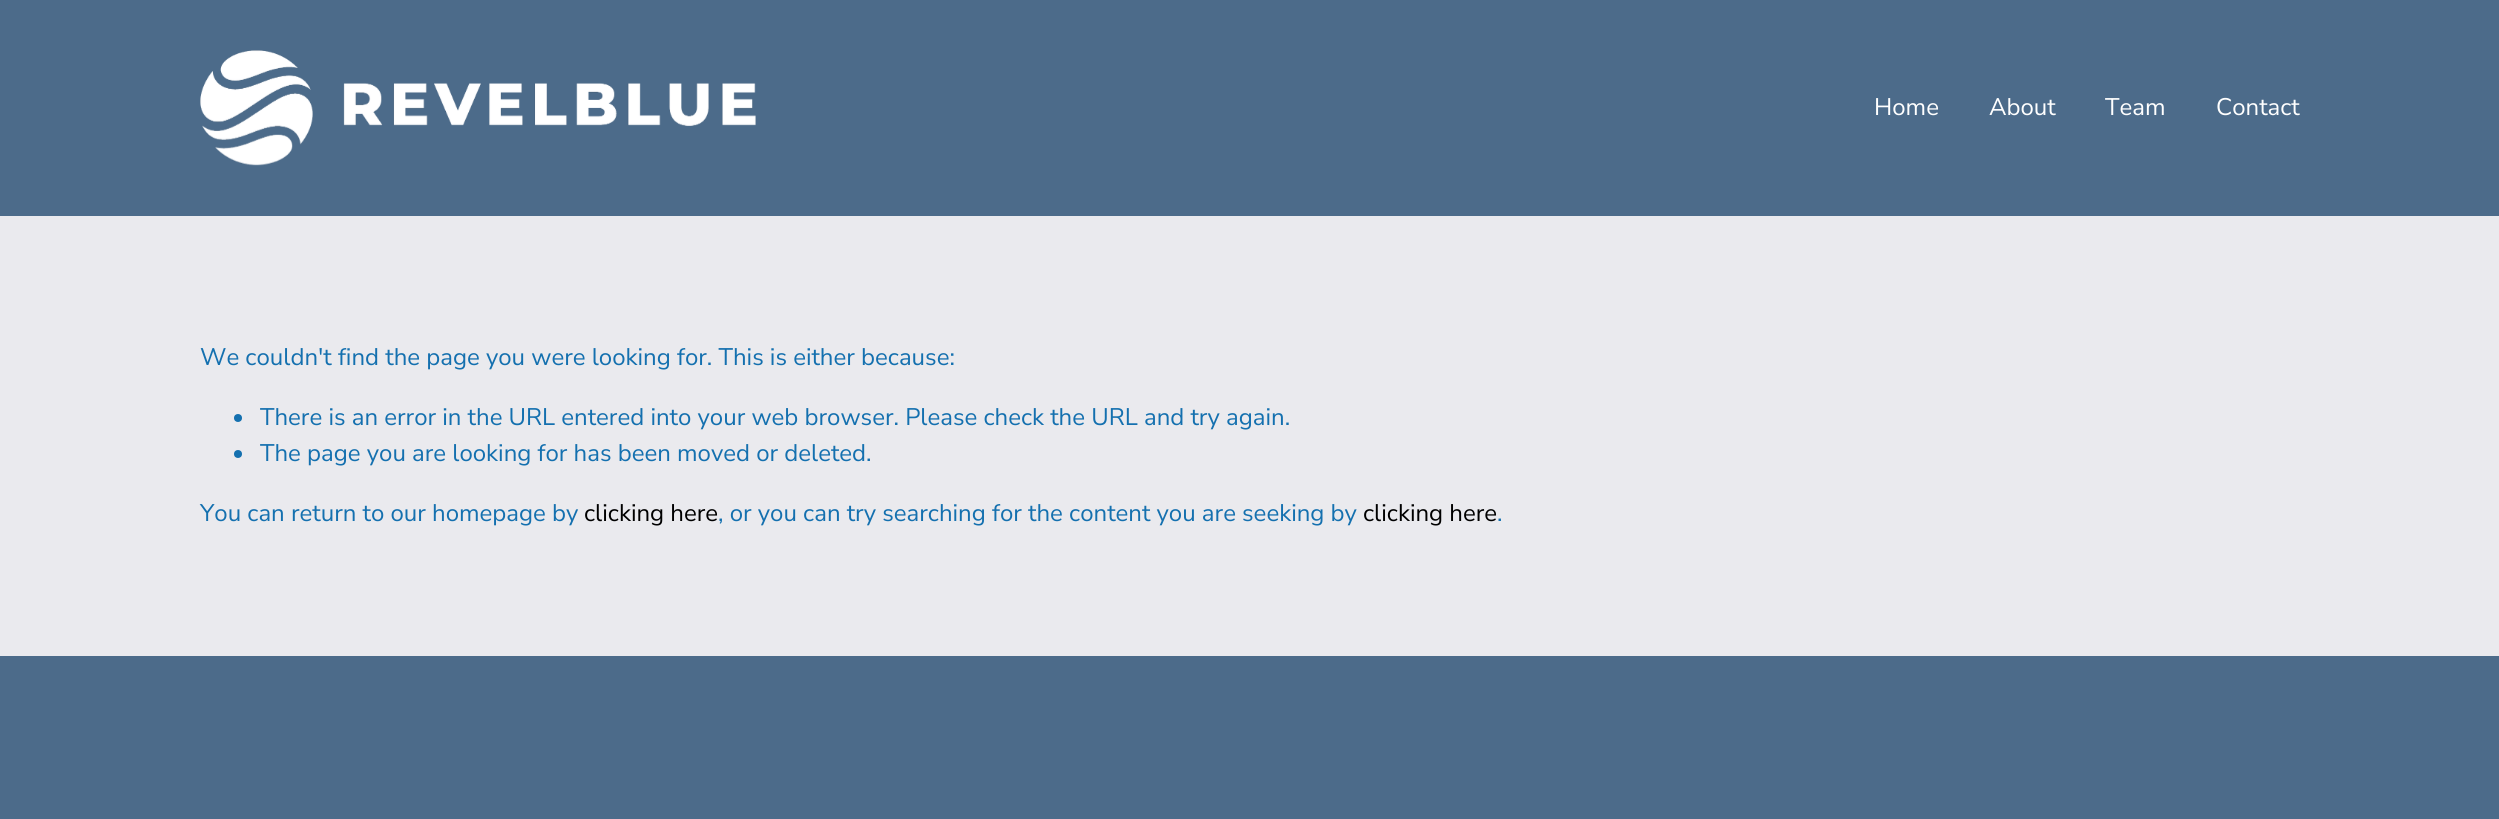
import math
import cairocffi as cairo

surface = cairo.ImageSurface(cairo.FORMAT_RGB24, 2499, 819)
ctx = cairo.Context(surface)
options = cairo.FontOptions()
options.set_hint_metrics(cairo.HINT_METRICS_OFF)
options.set_hint_style(cairo.HINT_STYLE_NONE)
ctx.set_font_options(options)
ctx.set_miter_limit(4)


def rgb(r, g, b):
    ctx.set_source_rgb(r / 255, g / 255, b / 255)


def face(family, size, italic, bold):
    ctx.select_font_face(family, cairo.FONT_SLANT_ITALIC if italic else cairo.FONT_SLANT_NORMAL, cairo.FONT_WEIGHT_BOLD if bold else cairo.FONT_WEIGHT_NORMAL)
    ctx.set_font_size(size)


def label(x, y, s):
    ctx.move_to(x, y)
    ctx.show_text(s)


def rect(x, y, w, h):
    ctx.rectangle(x, y, w, h)
    ctx.fill()


def image(path, x, y, w, h):
    ctx.save()
    ctx.set_source_surface(cairo.ImageSurface.create_from_png(path), x, y)
    ctx.rectangle(x, y, w, h)
    ctx.fill()
    ctx.restore()


rgb(234, 234, 238)
ctx.paint()
rgb(76, 107, 138)
rect(0, 0, 2499, 216)
image('image0.png', 200, 50, 556, 116)
face('Nunito Sans', 24, 0, 0)
rgb(255, 255, 255)
label(1874, 115, 'Home')
label(1989, 115, 'About')
label(2105, 115, 'Team')
label(2216, 115, 'Contact')
rgb(20, 112, 175)
label(200, 365, 'We couldn\'t find the page you were looking for. This is either because:')
ctx.new_path()
ctx.arc(238, 418, 4, 0, 2 * math.pi)
ctx.fill()
label(260, 425, 'There is an error in the URL entered into your web browser. Please check the URL and try again.')
ctx.new_path()
ctx.arc(238, 454, 4, 0, 2 * math.pi)
ctx.fill()
label(260, 461, 'The page you are looking for has been moved or deleted.')
label(200, 521, 'You can return to our homepage by')
rgb(0, 0, 0)
label(584, 521, 'clicking here')
rgb(20, 112, 175)
label(718, 521, ', or you can try searching for the content you are seeking by')
rgb(0, 0, 0)
label(1363, 521, 'clicking here')
rgb(20, 112, 175)
label(1497, 521, '.')
rgb(76, 107, 138)
rect(0, 656, 2499, 163)
surface.write_to_png('render.png')
